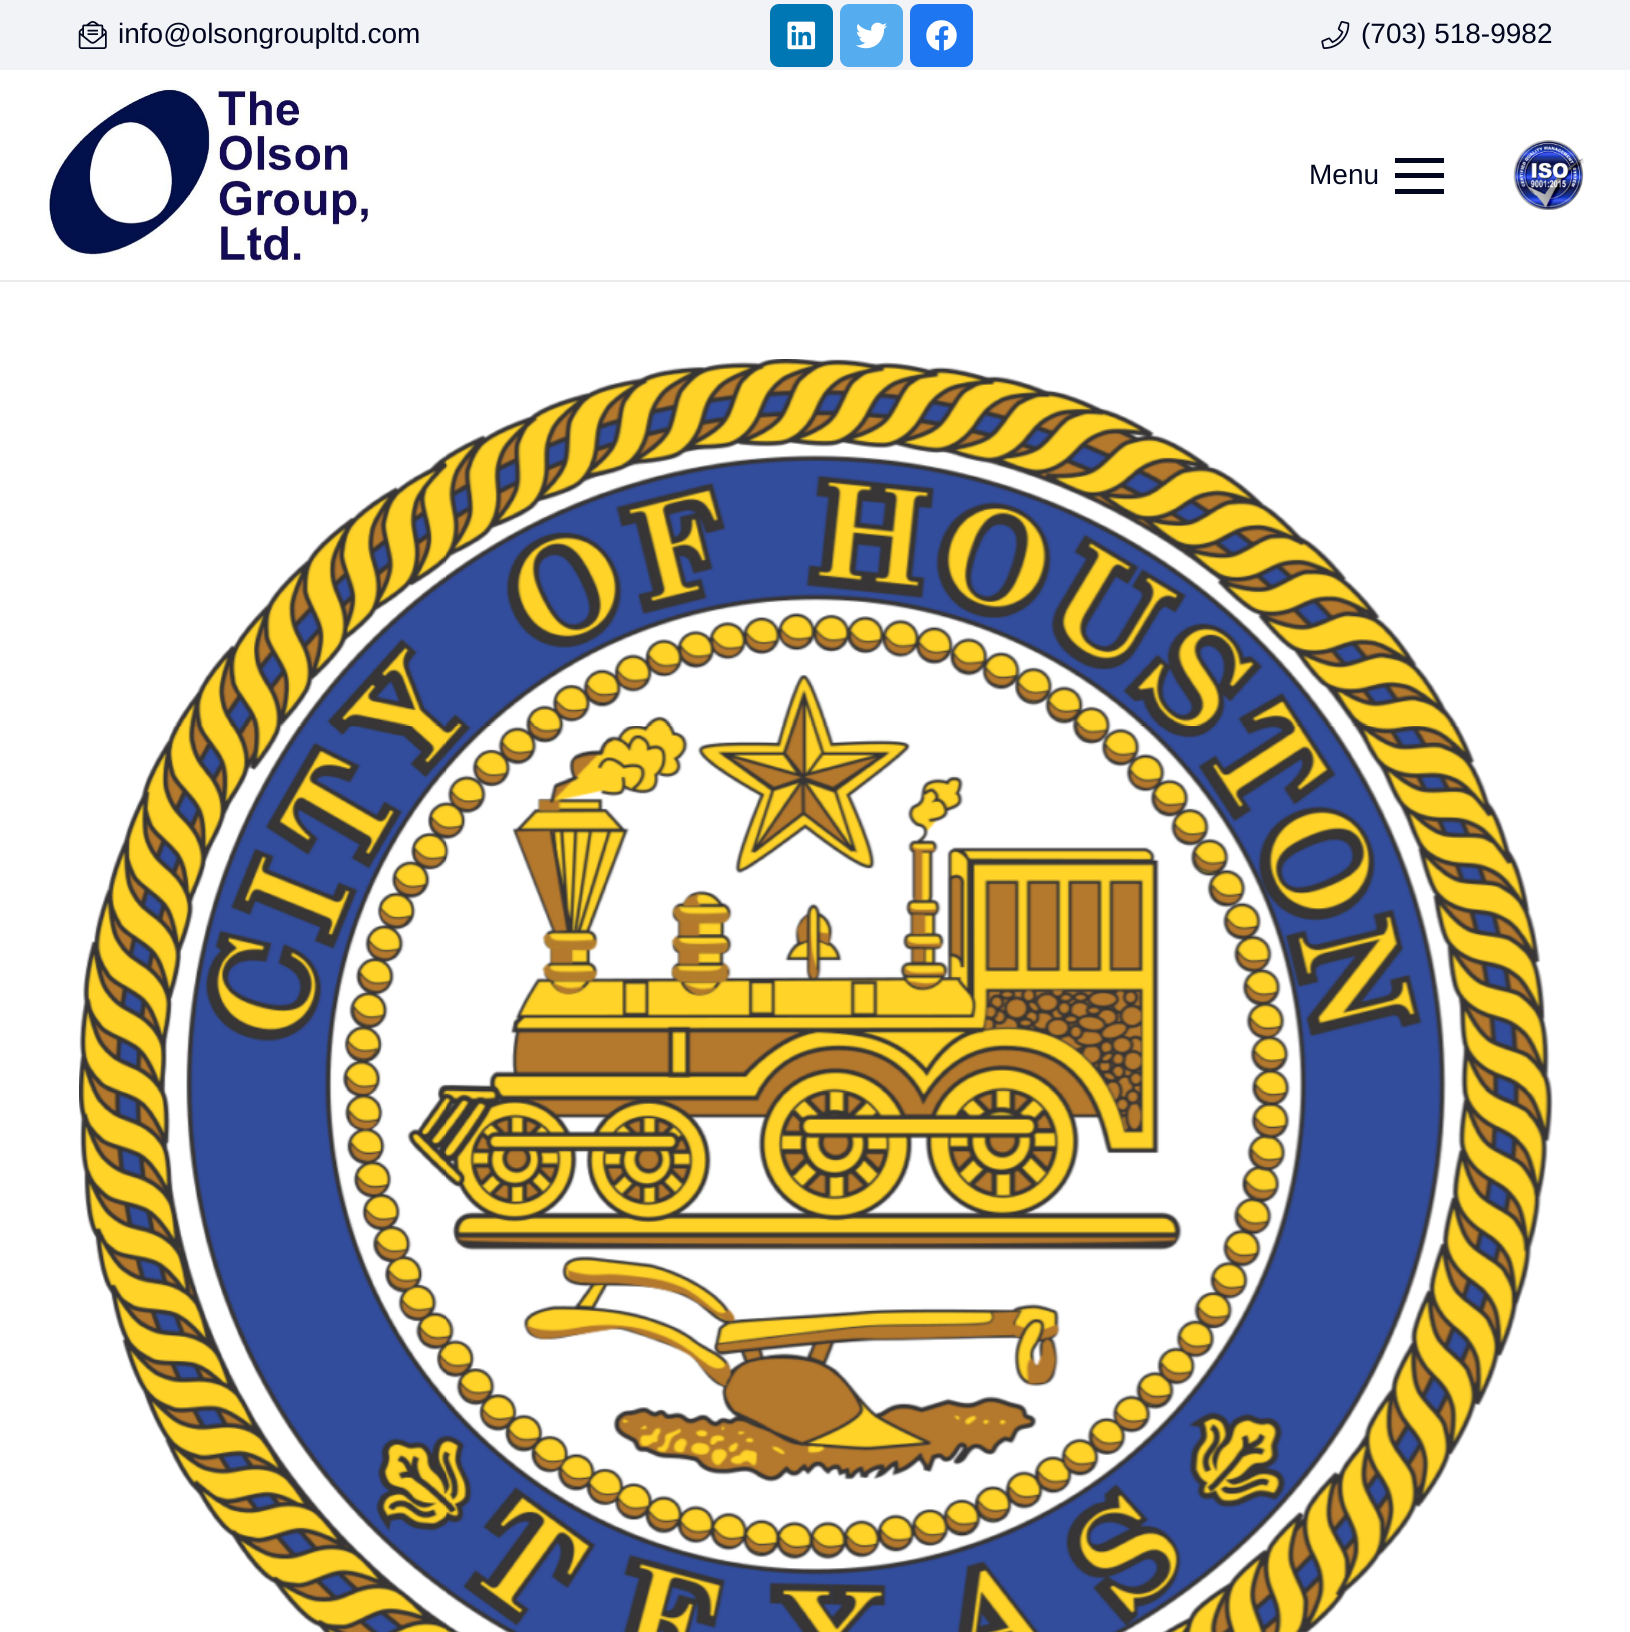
import math
import cairocffi as cairo

surface = cairo.ImageSurface(cairo.FORMAT_RGB24, 1630, 1632)
ctx = cairo.Context(surface)
options = cairo.FontOptions()
options.set_hint_metrics(cairo.HINT_METRICS_OFF)
options.set_hint_style(cairo.HINT_STYLE_NONE)
ctx.set_font_options(options)
ctx.set_miter_limit(4)


def rgb(r, g, b):
    ctx.set_source_rgb(r / 255, g / 255, b / 255)


def face(family, size, italic, bold):
    ctx.select_font_face(family, cairo.FONT_SLANT_ITALIC if italic else cairo.FONT_SLANT_NORMAL, cairo.FONT_WEIGHT_BOLD if bold else cairo.FONT_WEIGHT_NORMAL)
    ctx.set_font_size(size)


def label(x, y, s):
    ctx.move_to(x, y)
    ctx.show_text(s)


def rect(x, y, w, h):
    ctx.rectangle(x, y, w, h)
    ctx.fill()


def rrect(x, y, w, h, r):
    ctx.new_sub_path()
    for i, (u, v) in enumerate([(x + w - r, y + h - r), (x + r, y + h - r), (x + r, y + r), (x + w - r, y + r)]):
        ctx.arc(u, v, r, i * math.pi / 2, (i + 1) * math.pi / 2)
    ctx.close_path()


def image(path, x, y, w, h):
    ctx.save()
    ctx.set_source_surface(cairo.ImageSurface.create_from_png(path), x, y)
    ctx.rectangle(x, y, w, h)
    ctx.fill()
    ctx.restore()


rgb(255, 255, 255)
ctx.paint()
rgb(242, 243, 247)
rect(0, 0, 1630, 70)
image('image0.png', 78, 21, 29, 28)
face('Liberation Sans', 28, 0, 0)
rgb(2, 7, 31)
label(118, 43, 'info@olsongroupltd.com')
rgb(0, 119, 181)
rrect(770, 4, 63, 63, 9)
ctx.fill()
image('image1.png', 787, 21, 29, 29)
rgb(85, 172, 238)
rrect(840, 4, 63, 63, 9)
ctx.fill()
image('image2.png', 856, 22, 32, 27)
rgb(30, 119, 240)
rrect(910, 4, 63, 63, 9)
ctx.fill()
image('image3.png', 926, 20, 31, 31)
image('image4.png', 1321, 21, 29, 28)
rgb(2, 7, 31)
label(1361, 43, '(703) 518-9982')
rgb(235, 235, 235)
rect(0, 280, 1630, 2)
image('image5.png', 47, 88, 322, 175)
rgb(2, 7, 31)
label(1309, 184, 'Menu')
rect(1395, 173, 49, 5)
rect(1395, 158, 49, 5)
rect(1395, 189, 49, 5)
image('image6.png', 1513, 140, 71, 70)
image('image7.png', 79, 359, 1474, 1273)
surface.write_to_png('render.png')
